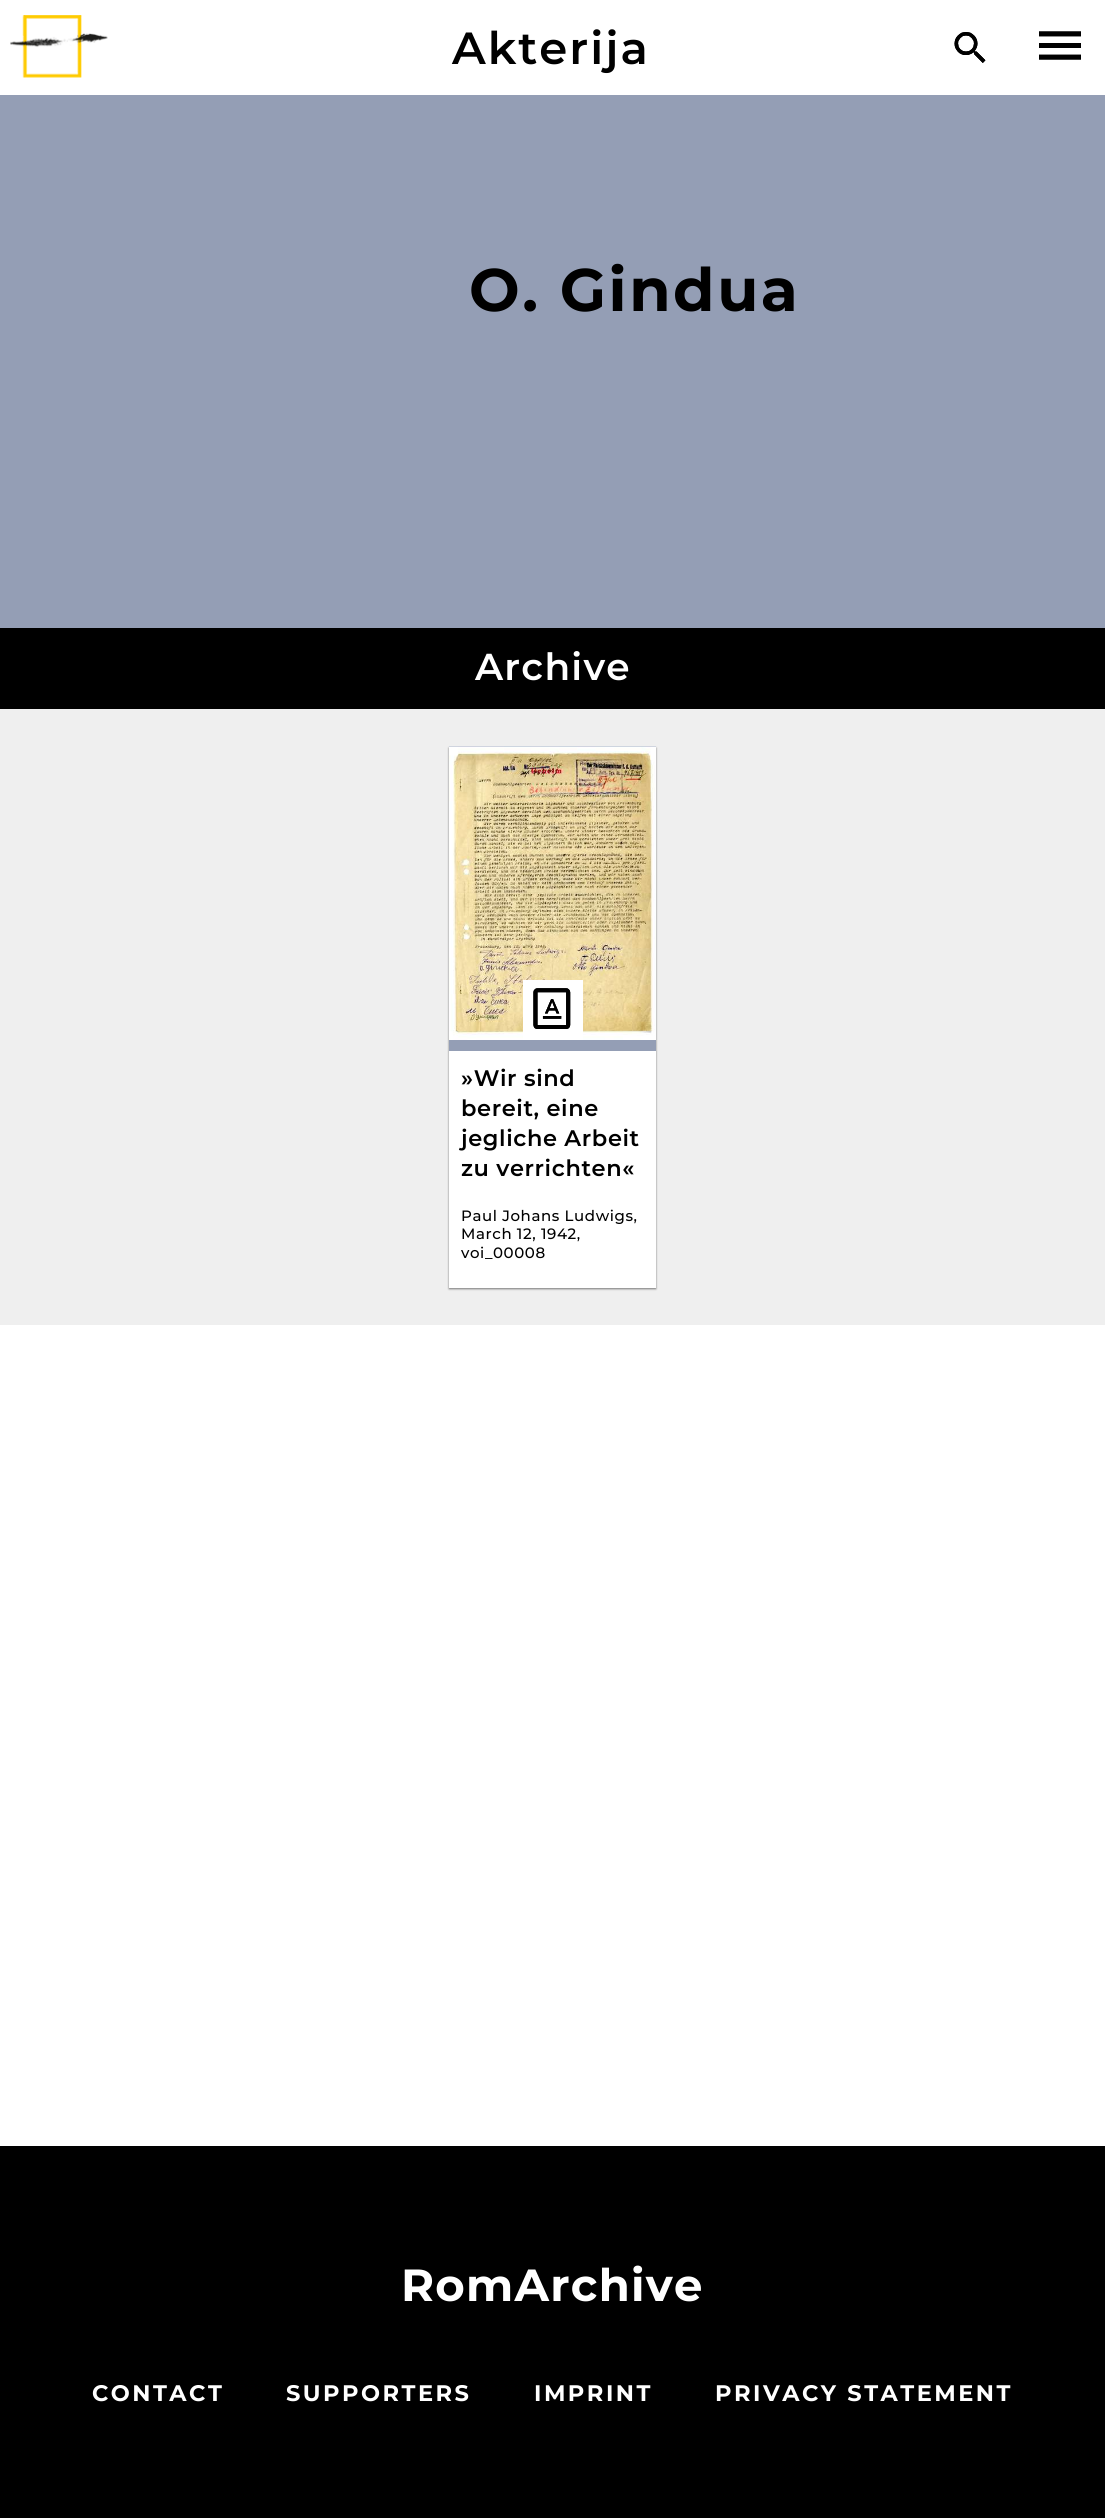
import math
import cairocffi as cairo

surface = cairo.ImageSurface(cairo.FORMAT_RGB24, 1105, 2518)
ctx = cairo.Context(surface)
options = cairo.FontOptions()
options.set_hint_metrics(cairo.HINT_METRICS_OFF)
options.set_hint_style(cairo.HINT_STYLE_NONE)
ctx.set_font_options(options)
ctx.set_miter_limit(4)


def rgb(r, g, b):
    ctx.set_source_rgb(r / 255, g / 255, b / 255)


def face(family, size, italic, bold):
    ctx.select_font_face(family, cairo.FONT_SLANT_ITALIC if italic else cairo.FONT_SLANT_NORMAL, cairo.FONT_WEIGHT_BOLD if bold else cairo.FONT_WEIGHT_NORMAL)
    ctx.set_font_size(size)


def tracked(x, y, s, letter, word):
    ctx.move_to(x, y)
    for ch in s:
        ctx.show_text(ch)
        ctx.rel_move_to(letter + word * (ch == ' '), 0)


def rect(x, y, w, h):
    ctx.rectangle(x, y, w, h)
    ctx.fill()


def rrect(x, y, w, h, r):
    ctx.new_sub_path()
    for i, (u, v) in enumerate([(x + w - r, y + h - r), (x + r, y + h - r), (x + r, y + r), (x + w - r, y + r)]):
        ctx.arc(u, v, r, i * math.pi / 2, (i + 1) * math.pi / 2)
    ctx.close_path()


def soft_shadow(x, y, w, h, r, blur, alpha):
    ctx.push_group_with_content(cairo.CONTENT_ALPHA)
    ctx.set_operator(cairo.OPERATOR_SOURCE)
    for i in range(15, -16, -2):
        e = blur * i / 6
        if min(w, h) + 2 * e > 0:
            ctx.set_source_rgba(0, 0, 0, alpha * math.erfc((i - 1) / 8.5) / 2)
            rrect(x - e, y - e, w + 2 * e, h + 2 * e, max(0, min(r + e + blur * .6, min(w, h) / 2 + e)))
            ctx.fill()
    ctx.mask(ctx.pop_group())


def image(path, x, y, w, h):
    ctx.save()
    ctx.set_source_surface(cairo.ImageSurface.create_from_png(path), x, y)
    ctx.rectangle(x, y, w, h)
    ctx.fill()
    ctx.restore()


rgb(255, 255, 255)
ctx.paint()
image('image0.png', 10, 15, 98, 63)
face('Montserrat SemiBold', 45, 0, 0)
rgb(0, 0, 0)
tracked(452, 64, 'Akterija', 2, 0)
image('image1.png', 954, 32, 32, 31)
image('image2.png', 1039, 31, 42, 29)
rgb(148, 158, 181)
rect(0, 95, 1105, 533)
face('Montserrat', 60, 0, 1)
rgb(0, 0, 0)
tracked(469, 311, 'O. Gindua', 2.5, 0)
rgb(239, 239, 239)
rect(0, 709, 1105, 616)
rgb(0, 0, 0)
rect(0, 628, 1105, 81)
face('Montserrat SemiBold', 37.5, 0, 0)
rgb(255, 255, 255)
tracked(475, 680, 'Archive', 1.25, 0)
rgb(0, 0, 0)
soft_shadow(449, 748, 207, 541, 0, 1, 0.5)
rgb(255, 255, 255)
rect(449, 1051, 207, 237)
rgb(148, 158, 181)
rect(449, 746, 207, 1)
image('image3.png', 449, 746, 207, 294)
rgb(255, 255, 255)
rect(523, 980, 60, 60)
image('image4.png', 533, 988, 38, 41)
rgb(148, 158, 181)
rect(449, 1040, 207, 11)
face('Montserrat SemiBold', 22.5, 0, 0)
rgb(0, 0, 0)
tracked(461, 1086, '»Wir sind', 0.6, 0)
tracked(461, 1116, 'bereit, eine', 0.6, 0)
tracked(461, 1146, 'jegliche Arbeit', 0.6, 0)
tracked(461, 1176, 'zu verrichten«', 0.6, 0)
face('Montserrat Medium', 15, 0, 0)
tracked(461, 1221, 'Paul Johans Ludwigs,', 0.6, 0)
tracked(461, 1239, 'March 12, 1942,', 0.6, 0)
tracked(461, 1258, 'voi_00008', 0.6, 0)
rect(0, 2146, 1105, 372)
face('Montserrat', 45, 0, 1)
rgb(255, 255, 255)
tracked(401, 2301, 'RomArchive', 1.25, 0)
face('Montserrat', 22.5, 0, 1)
tracked(92, 2401, 'CONTACT', 2.5, 0)
tracked(286, 2401, 'SUPPORTERS', 2.5, 0)
tracked(534, 2401, 'IMPRINT', 2.5, 0)
tracked(715, 2401, 'PRIVACY STATEMENT', 2.5, 0)
surface.write_to_png('render.png')
